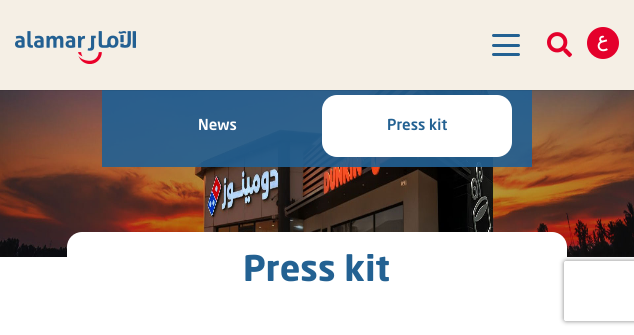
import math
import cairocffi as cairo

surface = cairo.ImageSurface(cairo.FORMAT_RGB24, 634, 335)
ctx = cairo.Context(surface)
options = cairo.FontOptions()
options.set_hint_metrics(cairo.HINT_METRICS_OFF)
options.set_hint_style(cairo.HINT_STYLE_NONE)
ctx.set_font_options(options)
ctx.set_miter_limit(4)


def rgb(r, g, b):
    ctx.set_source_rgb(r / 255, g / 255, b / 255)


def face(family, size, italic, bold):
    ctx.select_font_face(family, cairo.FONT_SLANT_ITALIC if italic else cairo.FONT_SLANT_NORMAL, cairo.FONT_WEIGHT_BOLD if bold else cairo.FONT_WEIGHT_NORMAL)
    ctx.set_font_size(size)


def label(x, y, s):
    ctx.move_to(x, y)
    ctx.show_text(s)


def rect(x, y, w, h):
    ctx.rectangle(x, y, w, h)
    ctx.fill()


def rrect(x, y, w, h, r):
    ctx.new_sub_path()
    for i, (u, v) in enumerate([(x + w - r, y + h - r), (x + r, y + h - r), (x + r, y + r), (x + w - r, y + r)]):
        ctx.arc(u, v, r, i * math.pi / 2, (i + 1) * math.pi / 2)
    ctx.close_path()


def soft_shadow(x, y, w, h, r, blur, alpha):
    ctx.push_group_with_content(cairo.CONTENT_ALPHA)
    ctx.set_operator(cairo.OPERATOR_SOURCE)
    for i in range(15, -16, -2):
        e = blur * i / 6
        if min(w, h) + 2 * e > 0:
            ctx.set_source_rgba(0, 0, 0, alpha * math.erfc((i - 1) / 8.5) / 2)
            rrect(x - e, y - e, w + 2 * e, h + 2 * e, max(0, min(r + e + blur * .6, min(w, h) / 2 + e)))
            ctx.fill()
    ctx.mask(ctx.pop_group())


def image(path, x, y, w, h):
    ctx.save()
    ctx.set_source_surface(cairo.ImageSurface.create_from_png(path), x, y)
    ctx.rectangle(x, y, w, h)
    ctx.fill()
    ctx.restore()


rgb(255, 255, 255)
ctx.paint()
image('image3.png', 0, 90, 634, 167)
ctx.set_source_rgba(0.137, 0.376, 0.573, 0.91)
rect(102, 90, 430, 77)
ctx.set_source_rgba(0, 0, 0, 0.08)
rect(0, 90, 634, 1)
rgb(245, 239, 229)
rect(0, 0, 634, 90)
image('image0.png', 15, 31, 121, 33)
rgb(35, 97, 146)
rrect(492, 44, 28, 3, 1.5)
ctx.fill()
rrect(492, 34, 28, 3, 1.5)
ctx.fill()
rrect(492, 53, 28, 3, 1.5)
ctx.fill()
image('image1.png', 547, 32, 25, 26)
image('image2.png', 587, 27, 32, 32)
face('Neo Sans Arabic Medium', 15, 0, 0)
rgb(255, 255, 255)
label(198, 130, 'News')
rrect(322, 95, 190, 62, 15)
ctx.fill()
rgb(35, 97, 146)
label(387, 130, 'Press kit')
rgb(255, 255, 255)
rrect(67, 232, 500, 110, 15)
ctx.fill()
face('Neo Sans Arabic', 35, 0, 1)
rgb(35, 97, 146)
label(243, 281, 'Press kit')
ctx.save()
ctx.set_fill_rule(cairo.FILL_RULE_EVEN_ODD)
ctx.new_path()
ctx.move_to(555, 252)
ctx.line_to(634, 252)
ctx.line_to(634, 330)
ctx.line_to(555, 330)
ctx.close_path()
ctx.move_to(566, 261)
ctx.line_to(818, 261)
ctx.curve_to(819, 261, 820, 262, 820, 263)
ctx.line_to(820, 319)
ctx.curve_to(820, 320, 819, 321, 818, 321)
ctx.line_to(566, 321)
ctx.curve_to(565, 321, 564, 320, 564, 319)
ctx.line_to(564, 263)
ctx.curve_to(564, 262, 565, 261, 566, 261)
ctx.close_path()
ctx.clip()
rgb(128, 128, 128)
soft_shadow(564, 261, 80, 60, 2, 2.5, 1)
ctx.restore()
surface.write_to_png('render.png')
